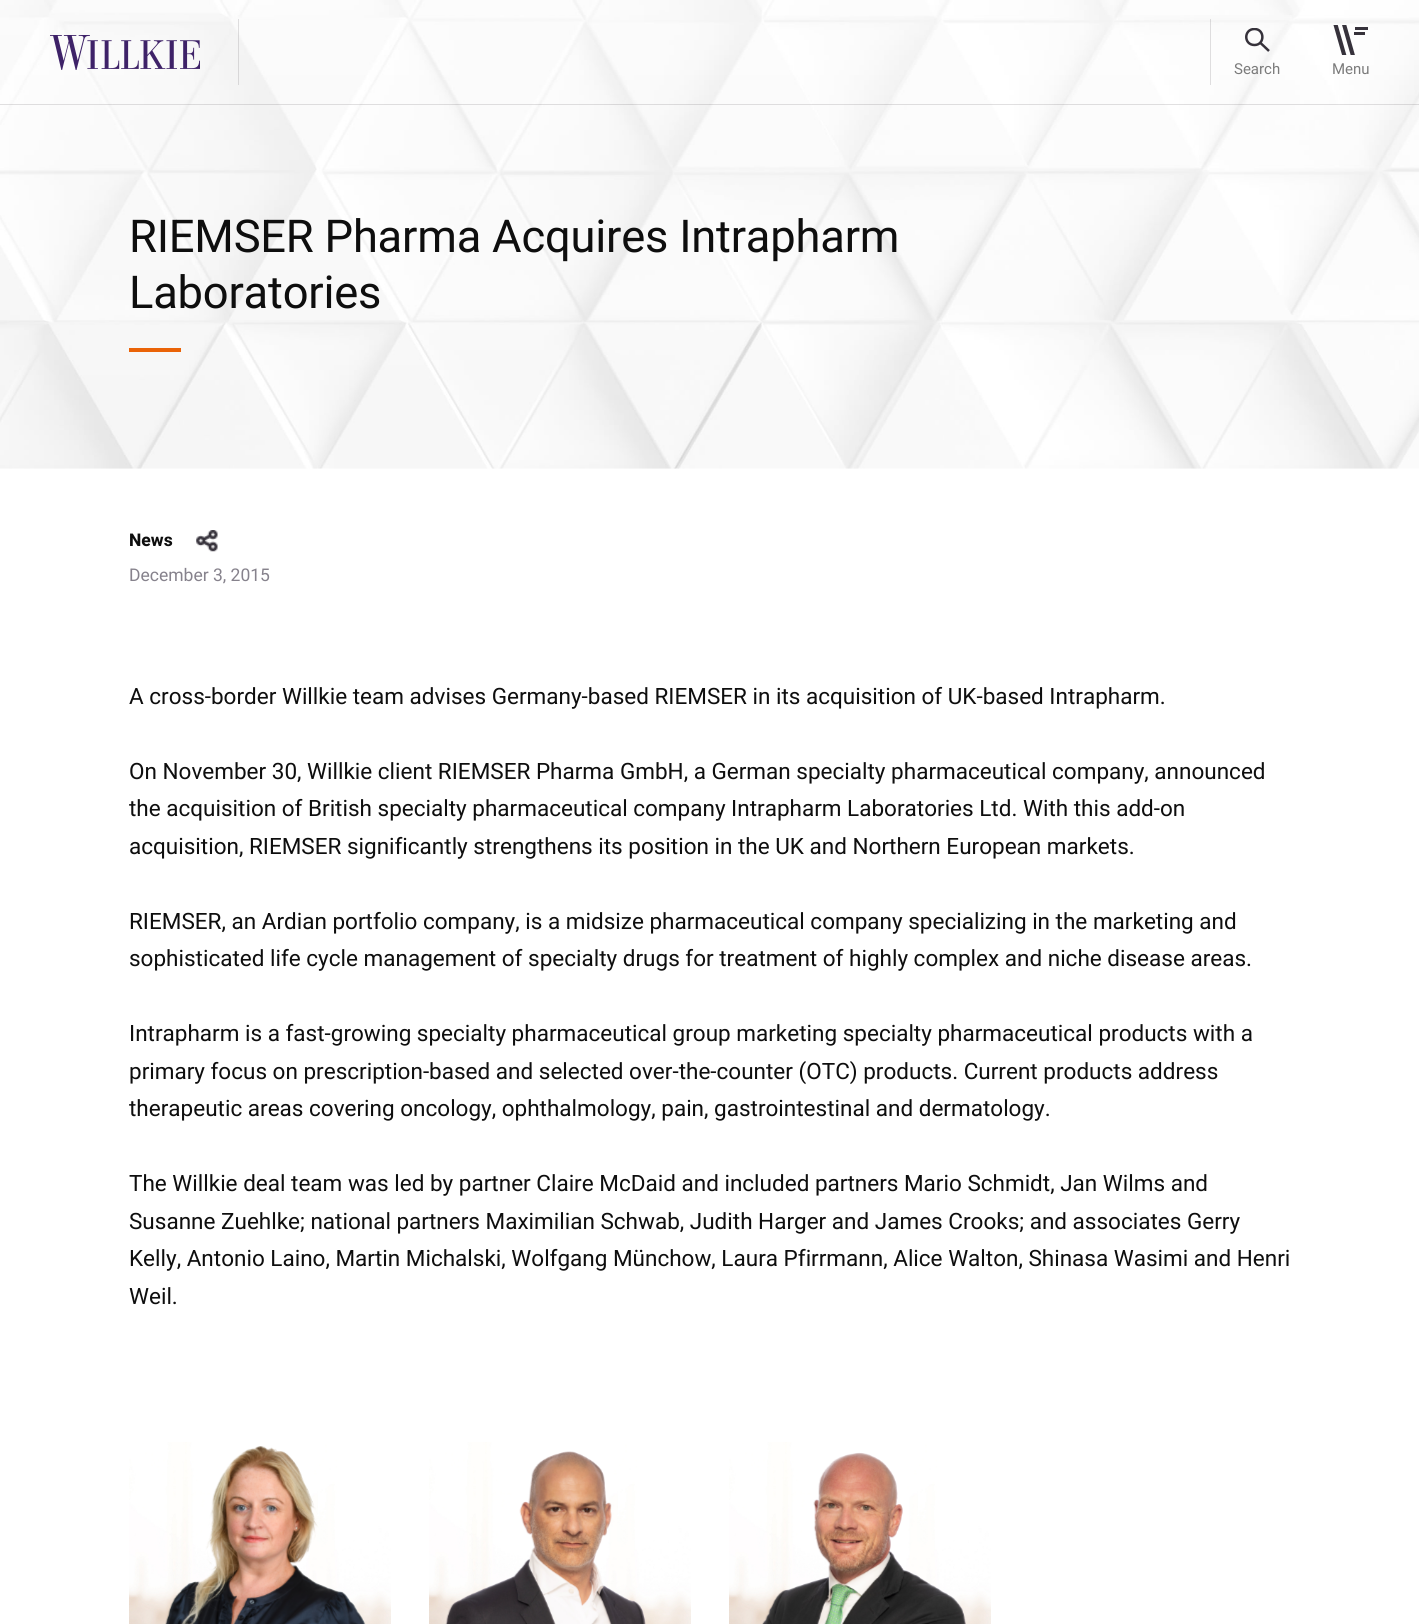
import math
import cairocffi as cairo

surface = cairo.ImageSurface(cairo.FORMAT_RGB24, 1419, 1624)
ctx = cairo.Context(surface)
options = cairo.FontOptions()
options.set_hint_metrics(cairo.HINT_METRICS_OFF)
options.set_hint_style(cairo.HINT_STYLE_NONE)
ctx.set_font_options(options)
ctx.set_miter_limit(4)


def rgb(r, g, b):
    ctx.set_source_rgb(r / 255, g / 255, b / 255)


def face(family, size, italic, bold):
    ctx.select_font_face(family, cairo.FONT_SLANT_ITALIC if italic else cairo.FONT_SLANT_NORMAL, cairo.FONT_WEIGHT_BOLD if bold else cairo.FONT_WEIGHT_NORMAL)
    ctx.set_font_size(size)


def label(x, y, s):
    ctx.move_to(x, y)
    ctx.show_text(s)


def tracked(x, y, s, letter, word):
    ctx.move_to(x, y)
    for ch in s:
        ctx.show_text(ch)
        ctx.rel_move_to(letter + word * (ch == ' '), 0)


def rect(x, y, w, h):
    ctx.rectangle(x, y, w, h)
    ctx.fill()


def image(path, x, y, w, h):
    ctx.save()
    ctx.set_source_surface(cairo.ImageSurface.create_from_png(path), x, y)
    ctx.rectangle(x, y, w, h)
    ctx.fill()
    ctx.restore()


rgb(255, 255, 255)
ctx.paint()
image('image2.png', 0, 0, 1419, 469)
ctx.set_source_rgba(0.212, 0.196, 0.231, 0.15)
rect(0, 104, 1419, 1)
rect(238, 19, 1, 66)
image('image0.png', 50, 35, 150, 35)
rect(1210, 19, 1, 66)
ctx.new_path()
ctx.move_to(1260, 42.5)
ctx.line_to(1269, 51)
rgb(54, 50, 59)
ctx.set_line_width(2.5)
ctx.stroke()
ctx.save()
ctx.rectangle(1245, 28, 25, 25)
ctx.clip()
ctx.new_path()
ctx.move_to(1254.5, 29)
ctx.curve_to(1265, 29, 1265, 45, 1254.5, 45)
ctx.curve_to(1243.5, 45, 1243.5, 29, 1254.5, 29)
ctx.close_path()
ctx.stroke()
ctx.restore()
face('Heebo', 15, 0, 0)
rgb(123, 123, 123)
label(1234, 74, 'Search')
image('image1.png', 1333, 25, 35, 30)
label(1332, 74, 'Menu')
face('Heebo', 45.25, 0, 0)
rgb(14, 14, 14)
tracked(129, 252, 'RIEMSER Pharma Acquires Intrapharm', -0.2, 0)
tracked(129, 308, 'Laboratories', -0.2, 0)
rgb(234, 99, 7)
rect(129, 348, 52, 4)
face('Heebo', 17.5, 0, 1)
rgb(14, 14, 14)
label(129, 546, 'News')
image('image3.png', 196, 530, 22, 22)
face('Heebo', 17.5, 0, 0)
rgb(134, 130, 140)
label(129, 581, 'December 3, 2015')
face('Heebo', 22.5, 0, 0)
rgb(14, 14, 14)
label(129, 704, 'A cross-border Willkie team advises Germany-based RIEMSER in its acquisition of UK-based Intrapharm.')
label(129, 779, 'On November 30, Willkie client RIEMSER Pharma GmbH, a German specialty pharmaceutical company, announced')
label(129, 816, 'the acquisition of British specialty pharmaceutical company Intrapharm Laboratories Ltd. With this add-on')
label(129, 854, 'acquisition, RIEMSER significantly strengthens its position in the UK and Northern European markets.')
label(129, 929, 'RIEMSER, an Ardian portfolio company, is a midsize pharmaceutical company specializing in the marketing and')
label(129, 966, 'sophisticated life cycle management of specialty drugs for treatment of highly complex and niche disease areas.')
label(129, 1041, 'Intrapharm is a fast-growing specialty pharmaceutical group marketing specialty pharmaceutical products with a')
label(129, 1079, 'primary focus on prescription-based and selected over-the-counter (OTC) products. Current products address')
label(129, 1116, 'therapeutic areas covering oncology, ophthalmology, pain, gastrointestinal and dermatology.')
label(129, 1191, 'The Willkie deal team was led by partner Claire McDaid and included partners Mario Schmidt, Jan Wilms and')
label(129, 1229, 'Susanne Zuehlke; national partners Maximilian Schwab, Judith Harger and James Crooks; and associates Gerry')
label(129, 1266, 'Kelly, Antonio Laino, Martin Michalski, Wolfgang Münchow, Laura Pfirrmann, Alice Walton, Shinasa Wasimi and Henri')
label(129, 1304, 'Weil.')
image('image4.png', 129, 1442, 262, 182)
image('image5.png', 165, 1446, 201, 178)
image('image4.png', 429, 1442, 262, 182)
image('image6.png', 445, 1451, 201, 173)
image('image4.png', 729, 1442, 262, 182)
image('image7.png', 762, 1452, 204, 172)
surface.write_to_png('render.png')
